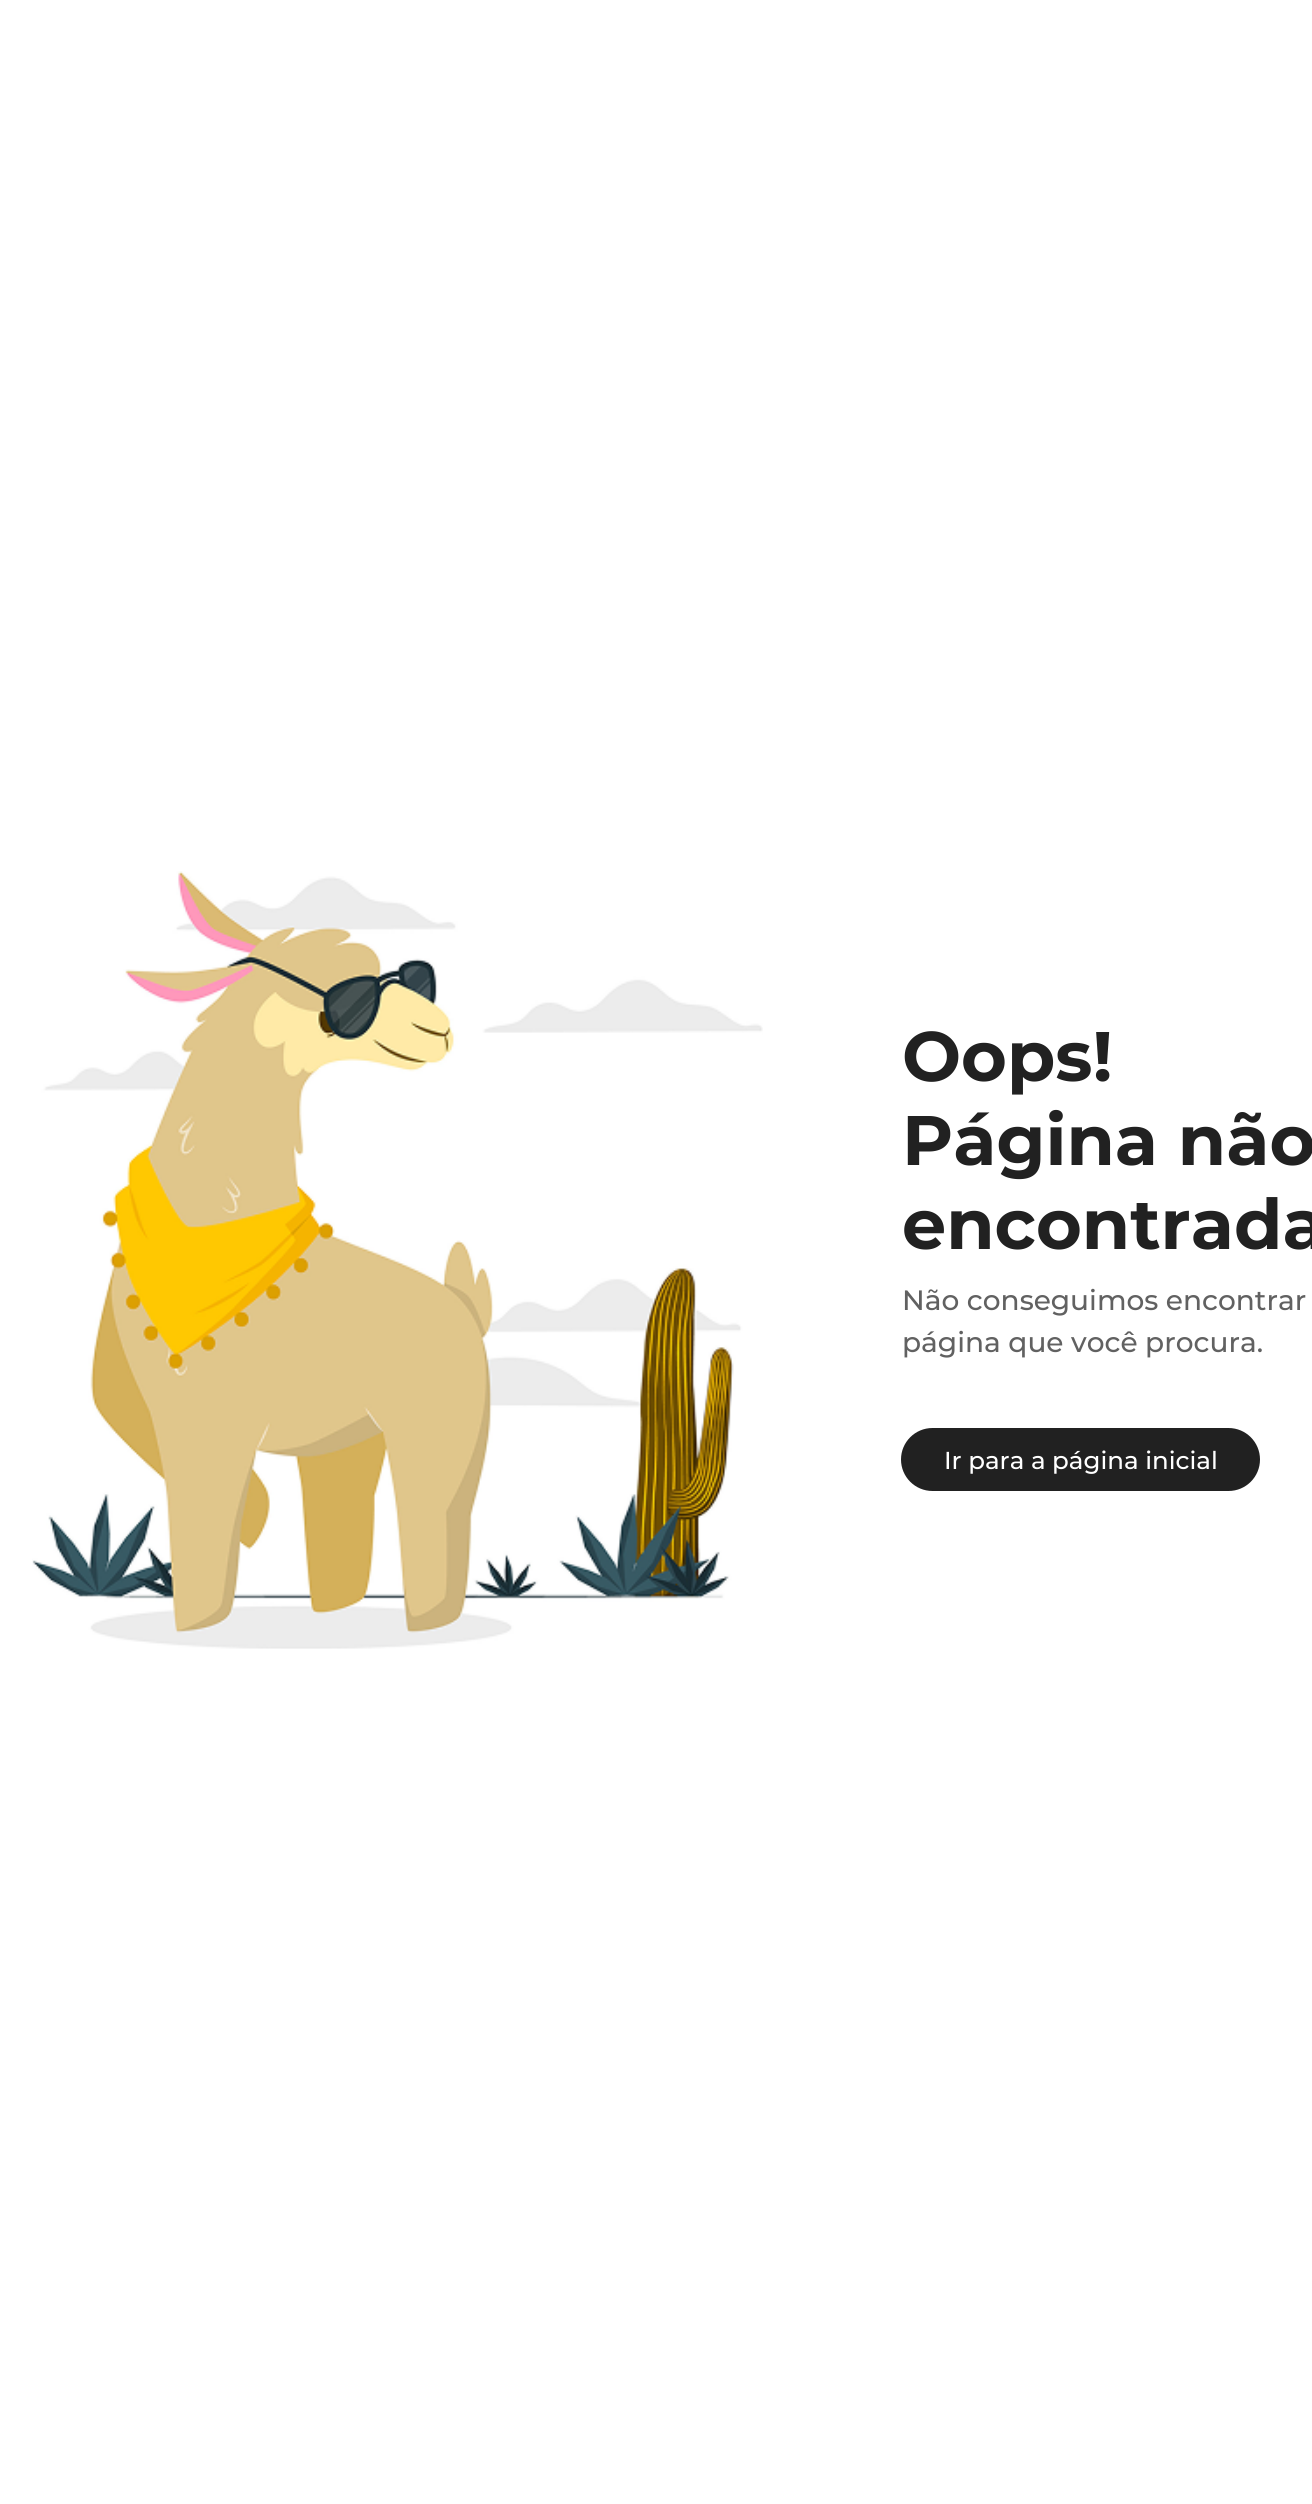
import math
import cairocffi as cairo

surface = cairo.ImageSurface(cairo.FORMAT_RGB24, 1312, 2504)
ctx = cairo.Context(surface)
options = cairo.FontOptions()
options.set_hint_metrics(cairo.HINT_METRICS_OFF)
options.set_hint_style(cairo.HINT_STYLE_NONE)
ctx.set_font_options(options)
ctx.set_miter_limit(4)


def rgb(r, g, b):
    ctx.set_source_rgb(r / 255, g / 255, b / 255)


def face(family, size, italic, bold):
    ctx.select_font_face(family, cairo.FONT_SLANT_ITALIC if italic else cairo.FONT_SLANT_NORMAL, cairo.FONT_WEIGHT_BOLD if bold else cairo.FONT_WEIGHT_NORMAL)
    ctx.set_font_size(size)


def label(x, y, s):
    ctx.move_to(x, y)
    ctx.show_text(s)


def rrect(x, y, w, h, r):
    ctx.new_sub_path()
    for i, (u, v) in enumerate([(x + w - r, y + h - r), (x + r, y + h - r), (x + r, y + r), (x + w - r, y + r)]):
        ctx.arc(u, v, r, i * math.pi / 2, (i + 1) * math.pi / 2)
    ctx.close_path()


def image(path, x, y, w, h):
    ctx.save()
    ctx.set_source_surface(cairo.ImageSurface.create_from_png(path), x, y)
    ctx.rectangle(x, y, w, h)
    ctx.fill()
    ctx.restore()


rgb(255, 255, 255)
ctx.paint()
image('image0.png', 32, 871, 731, 778)
face('Montserrat', 70, 0, 1)
rgb(33, 33, 33)
label(902, 1081, 'Oops!')
label(902, 1165, 'Página não')
label(902, 1249, 'encontrada')
face('Montserrat Medium', 28, 0, 0)
rgb(97, 97, 97)
label(902, 1310, 'Não conseguimos encontrar')
label(902, 1352, 'página que você procura.')
rgb(33, 33, 33)
rrect(901, 1428, 359, 63, 31.5)
ctx.fill()
face('Montserrat Medium', 24.5, 0, 0)
rgb(255, 255, 255)
label(944, 1469, 'Ir para a página inicial')
surface.write_to_png('render.png')
